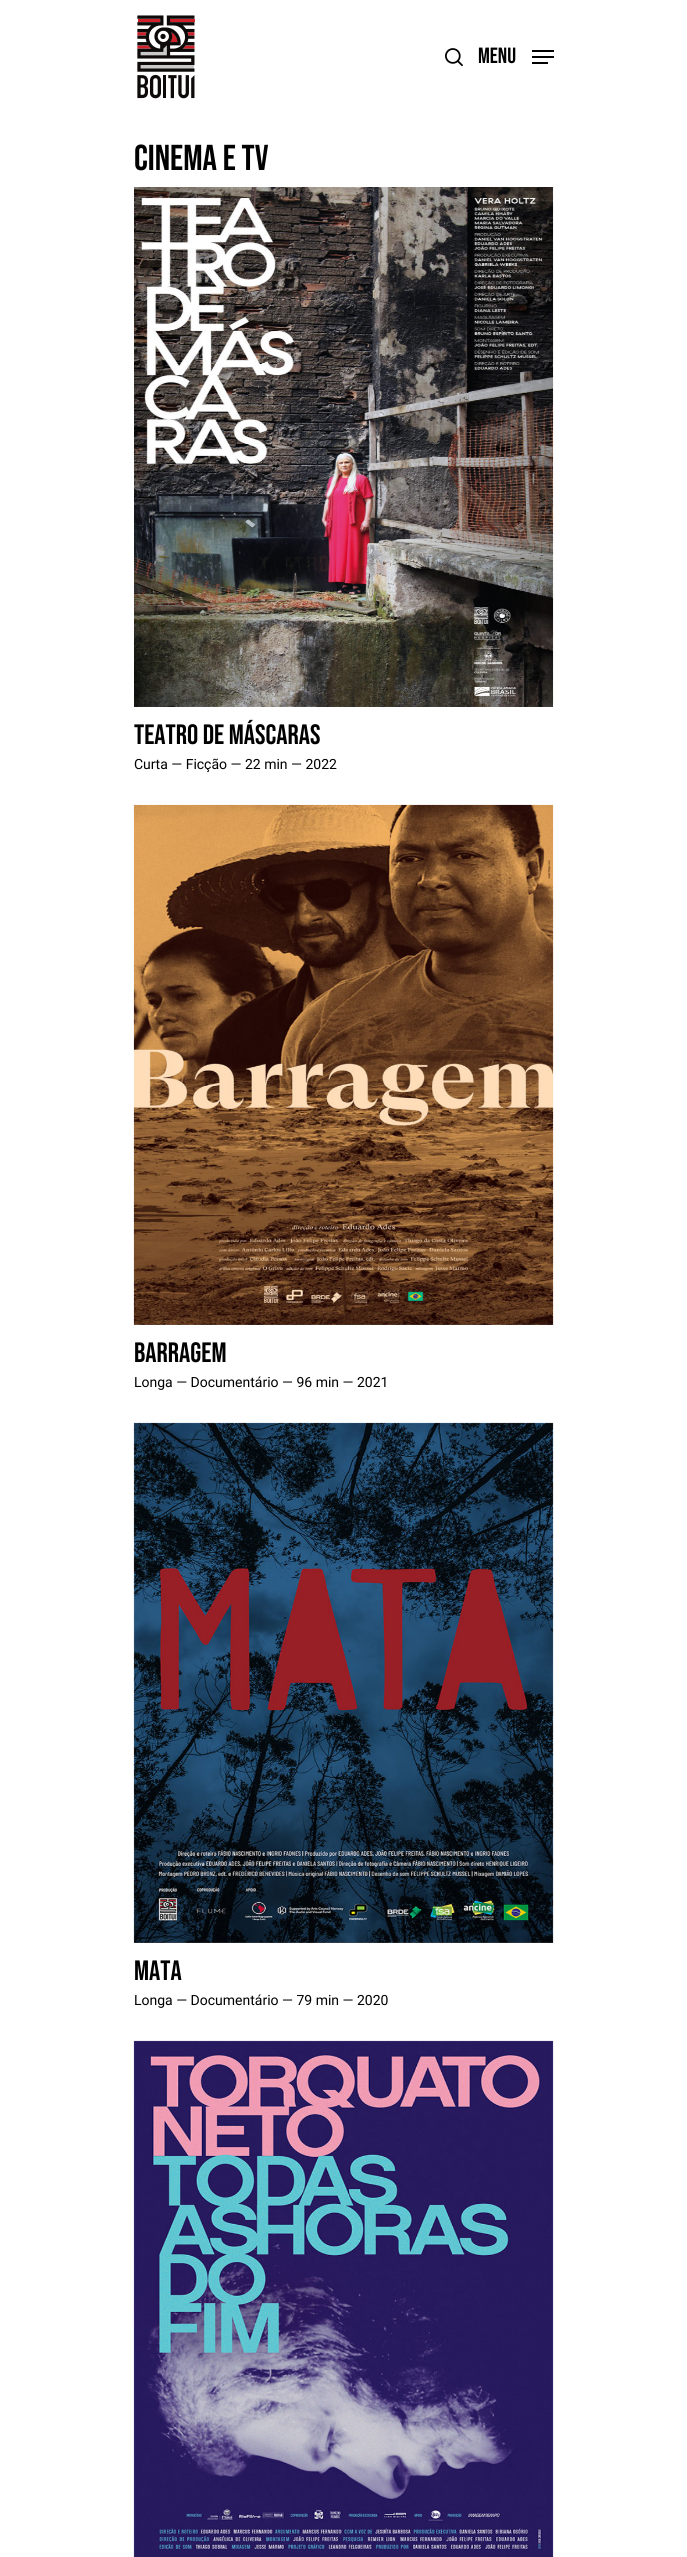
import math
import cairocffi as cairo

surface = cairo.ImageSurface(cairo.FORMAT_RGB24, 687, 2557)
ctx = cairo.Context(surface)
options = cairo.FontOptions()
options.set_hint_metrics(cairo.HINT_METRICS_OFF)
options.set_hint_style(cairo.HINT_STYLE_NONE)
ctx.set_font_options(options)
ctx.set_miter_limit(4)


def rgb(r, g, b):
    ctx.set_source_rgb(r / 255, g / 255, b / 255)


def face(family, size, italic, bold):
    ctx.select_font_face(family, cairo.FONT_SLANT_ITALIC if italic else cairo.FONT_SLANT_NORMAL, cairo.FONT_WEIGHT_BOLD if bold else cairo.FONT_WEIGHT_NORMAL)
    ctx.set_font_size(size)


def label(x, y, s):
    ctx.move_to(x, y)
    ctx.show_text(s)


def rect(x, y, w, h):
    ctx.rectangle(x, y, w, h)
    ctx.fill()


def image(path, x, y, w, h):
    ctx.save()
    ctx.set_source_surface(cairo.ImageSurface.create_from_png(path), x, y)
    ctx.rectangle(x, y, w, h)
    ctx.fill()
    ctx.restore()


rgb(255, 255, 255)
ctx.paint()
image('image0.png', 137, 15, 58, 84)
image('image1.png', 445, 48, 18, 19)
face('Bebas Neue', 22, 0, 0)
rgb(0, 0, 0)
label(478, 63, 'Menu')
rect(532, 50, 22, 2)
rect(532, 62, 16, 2)
rect(532, 56, 22, 2)
face('Bebas Neue', 36, 0, 0)
label(134, 170, 'CINEMA E TV')
image('image2.png', 134, 187, 420, 520)
face('Bebas Neue', 28, 0, 0)
label(134, 744, 'Teatro de máscaras')
face('Roboto', 14, 0, 0)
label(134, 769, 'Curta — Ficção — 22 min — 2022')
image('image3.png', 133, 804, 421, 521)
face('Bebas Neue', 28, 0, 0)
label(134, 1362, 'Barragem')
face('Roboto', 14, 0, 0)
label(134, 1387, 'Longa — Documentário — 96 min — 2021')
image('image4.png', 133, 1422, 421, 521)
face('Bebas Neue', 28, 0, 0)
label(134, 1980, 'Mata')
face('Roboto', 14, 0, 0)
label(134, 2005, 'Longa — Documentário — 79 min — 2020')
image('image5.png', 133, 2040, 421, 517)
surface.write_to_png('render.png')
